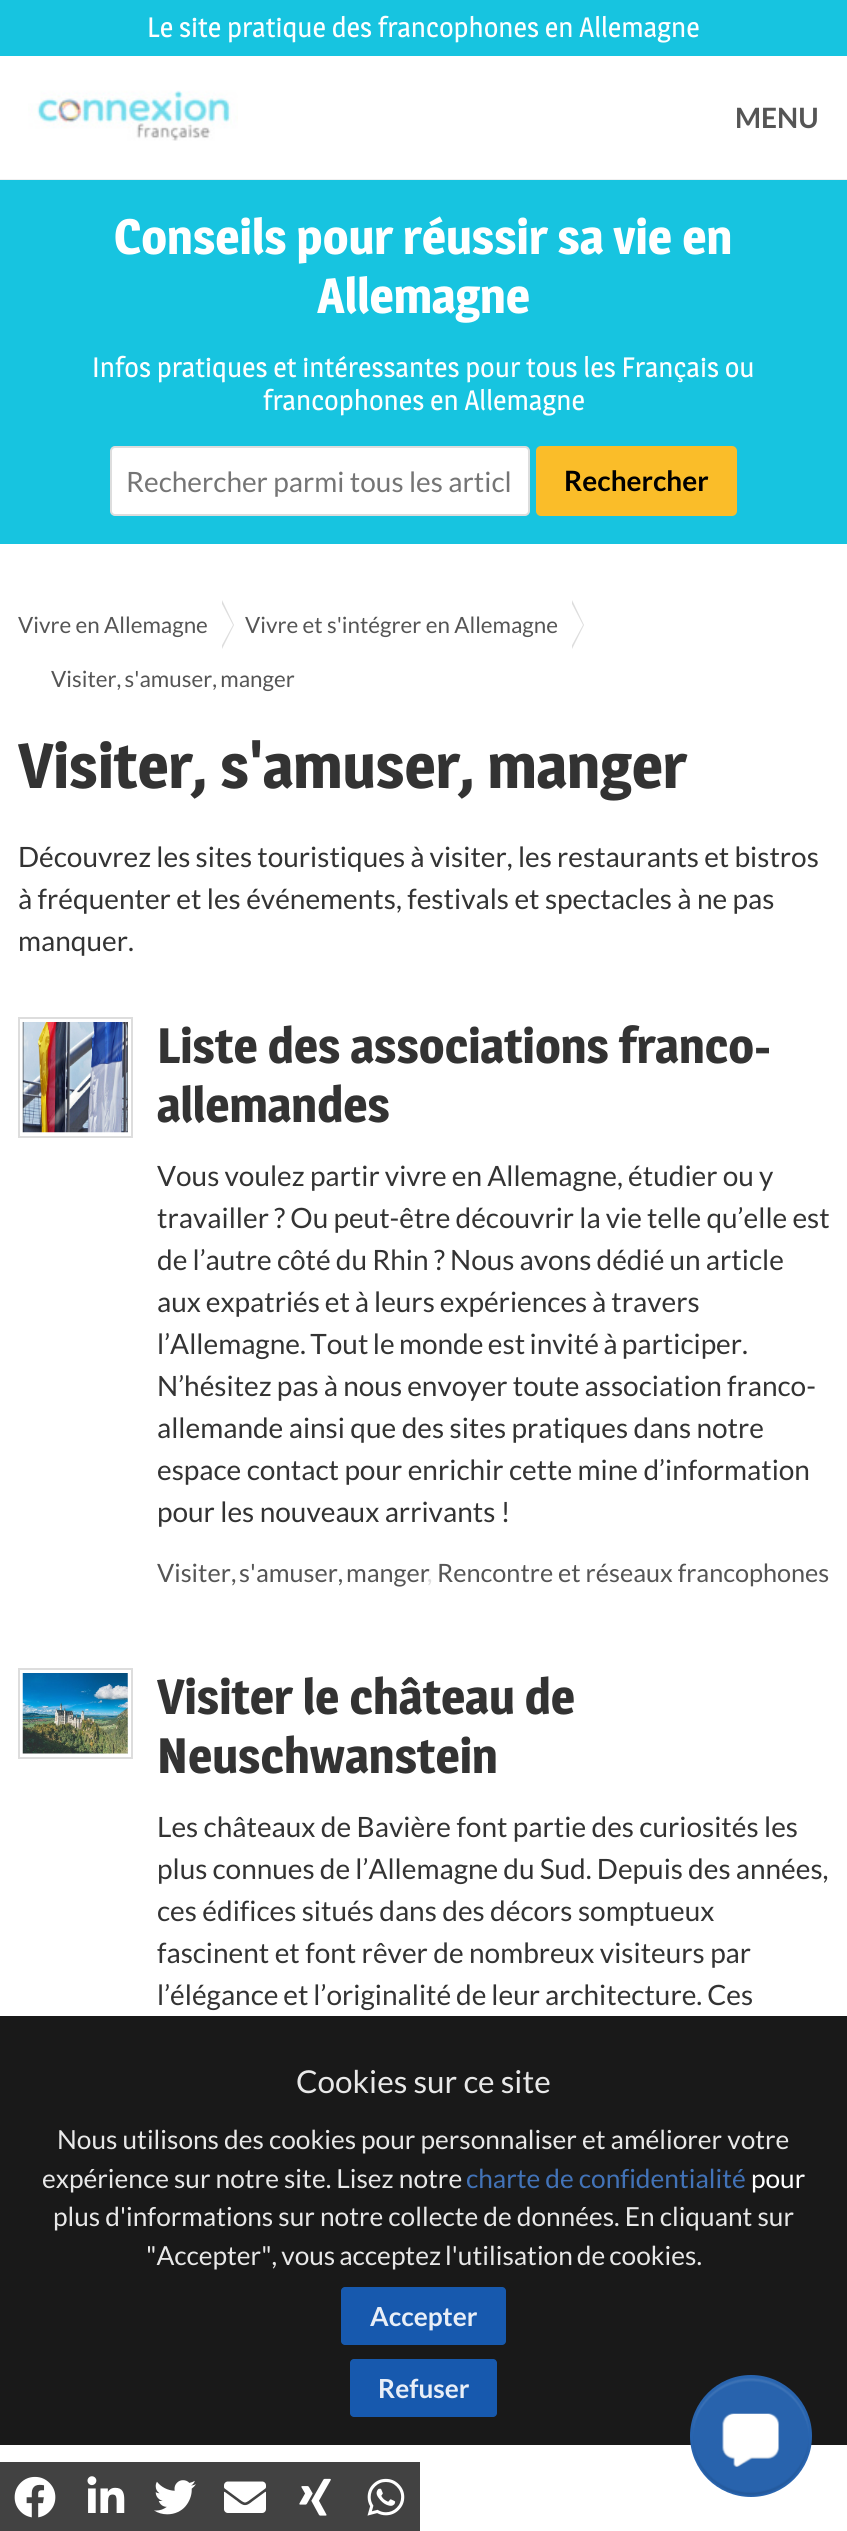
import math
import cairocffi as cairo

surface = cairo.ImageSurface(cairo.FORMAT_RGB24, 847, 2531)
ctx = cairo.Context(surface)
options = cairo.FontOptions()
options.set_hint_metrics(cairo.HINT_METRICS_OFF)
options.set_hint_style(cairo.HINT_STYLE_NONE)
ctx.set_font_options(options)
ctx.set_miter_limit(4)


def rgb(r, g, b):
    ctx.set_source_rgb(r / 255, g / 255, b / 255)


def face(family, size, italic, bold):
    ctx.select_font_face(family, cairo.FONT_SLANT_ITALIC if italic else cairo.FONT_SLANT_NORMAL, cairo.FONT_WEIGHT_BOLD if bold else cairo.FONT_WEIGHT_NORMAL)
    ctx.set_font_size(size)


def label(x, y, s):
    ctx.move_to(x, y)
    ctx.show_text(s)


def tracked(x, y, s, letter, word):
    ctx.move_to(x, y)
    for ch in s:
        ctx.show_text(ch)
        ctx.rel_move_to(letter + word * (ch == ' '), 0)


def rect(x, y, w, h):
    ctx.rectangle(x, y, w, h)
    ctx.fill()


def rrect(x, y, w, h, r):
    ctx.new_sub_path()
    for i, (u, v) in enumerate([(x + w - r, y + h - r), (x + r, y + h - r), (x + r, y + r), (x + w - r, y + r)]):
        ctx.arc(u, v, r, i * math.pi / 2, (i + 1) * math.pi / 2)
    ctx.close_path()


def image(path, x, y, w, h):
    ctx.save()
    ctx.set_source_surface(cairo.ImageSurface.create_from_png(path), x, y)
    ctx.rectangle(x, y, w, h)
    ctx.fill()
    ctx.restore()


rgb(255, 255, 255)
ctx.paint()
rgb(23, 196, 224)
rect(0, 0, 847, 56)
face('Magra', 28, 0, 0)
rgb(255, 255, 255)
label(147, 37, 'Le site pratique des francophones en Allemagne')
rgb(240, 240, 240)
rect(0, 179, 847, 1)
image('image0.png', 28, 90, 210, 51)
face('Lato', 28, 0, 1)
rgb(85, 85, 85)
label(735, 128, 'MENU')
rgb(23, 196, 224)
rect(0, 180, 847, 364)
face('Magra', 49, 0, 1)
rgb(255, 255, 255)
label(114, 254, 'Conseils pour réussir sa vie en')
label(317, 313, 'Allemagne')
face('Magra', 28, 0, 0)
label(92, 377, 'Infos pratiques et intéressantes pour tous les Français ou')
label(263, 410, 'francophones en Allemagne')
rrect(111, 447, 418, 68, 4)
ctx.fill_preserve()
rgb(221, 221, 221)
ctx.stroke()
face('Lato', 28, 0, 0)
rgb(117, 117, 117)
label(126, 492, 'Rechercher parmi tous les articl')
rgb(250, 189, 41)
rrect(536, 446, 201, 70, 5)
ctx.fill()
face('Lato', 28, 0, 1)
rgb(0, 0, 0)
label(564, 491, 'Rechercher')
rgb(221, 221, 221)
ctx.new_path()
ctx.move_to(222, 649)
ctx.line_to(222, 600)
ctx.line_to(234, 625)
ctx.close_path()
ctx.fill()
rgb(255, 255, 255)
ctx.new_path()
ctx.move_to(220, 649)
ctx.line_to(220, 600)
ctx.line_to(233, 625)
ctx.close_path()
ctx.fill()
face('Lato', 22.4, 0, 0)
rgb(85, 85, 85)
label(18, 633, 'Vivre en Allemagne')
rgb(221, 221, 221)
ctx.new_path()
ctx.move_to(572, 649)
ctx.line_to(572, 600)
ctx.line_to(584, 625)
ctx.close_path()
ctx.fill()
rgb(255, 255, 255)
ctx.new_path()
ctx.move_to(570, 649)
ctx.line_to(570, 600)
ctx.line_to(583, 625)
ctx.close_path()
ctx.fill()
rgb(85, 85, 85)
label(245, 633, 'Vivre et s\'intégrer en Allemagne')
tracked(51, 687, 'Visiter, s\'amuser, manger', 0, -1)
face('Magra', 63, 0, 1)
rgb(51, 51, 51)
label(18, 788, 'Visiter, s\'amuser, manger')
face('Lato', 28, 0, 0)
tracked(18, 867, 'Découvrez les sites touristiques à visiter, les restaurants et bistros', 0, -0.25)
label(18, 909, 'à fréquenter et les événements, festivals et spectacles à ne pas')
label(18, 951, 'manquer.')
ctx.rectangle(19, 1018, 113, 119)
rgb(221, 221, 221)
ctx.stroke()
image('image1.png', 22, 1022, 106, 111)
face('Magra', 49, 0, 1)
rgb(51, 51, 51)
label(157, 1063, 'Liste des associations franco-')
label(157, 1122, 'allemandes')
face('Lato', 28, 0, 0)
tracked(157, 1186, 'Vous voulez partir vivre en Allemagne, étudier ou y', 0, -0.25)
tracked(157, 1228, 'travailler ? Ou peut-être découvrir la vie telle qu’elle est', 0, -0.25)
tracked(157, 1270, 'de l’autre côté du Rhin ? Nous avons dédié un article', 0, -0.25)
tracked(157, 1312, 'aux expatriés et à leurs expériences à travers', 0, -0.5)
tracked(157, 1354, 'l’Allemagne. Tout le monde est invité à participer.', 0, -1)
tracked(157, 1396, 'N’hésitez pas à nous envoyer toute association franco-', 0, -0.25)
label(157, 1438, 'allemande ainsi que des sites pratiques dans notre')
label(157, 1480, 'espace contact pour enrichir cette mine d’information')
label(157, 1522, 'pour les nouveaux arrivants !')
face('Lato', 25.25, 0, 0)
rgb(85, 85, 85)
tracked(157, 1582, 'Visiter, s\'amuser, manger', 0, -2)
label(437, 1582, 'Rencontre et réseaux francophones')
rgb(221, 221, 221)
label(427, 1582, ',')
ctx.rectangle(19, 1669, 113, 89)
ctx.stroke()
image('image2.png', 22, 1673, 106, 81)
face('Magra', 49, 0, 1)
rgb(51, 51, 51)
label(157, 1714, 'Visiter le château de')
label(157, 1773, 'Neuschwanstein')
face('Lato', 28, 0, 0)
label(157, 1837, 'Les châteaux de Bavière font partie des curiosités les')
tracked(157, 1879, 'plus connues de l’Allemagne du Sud. Depuis des années,', 0, -0.25)
label(157, 1921, 'ces édifices situés dans des décors somptueux')
label(157, 1963, 'fascinent et font rêver de nombreux visiteurs par')
tracked(157, 2005, 'l’élégance et l’originalité de leur architecture. Ces', 0, -0.5)
ctx.set_source_rgba(0, 0, 0, 0.9)
rect(0, 2016, 847, 429)
face('Lato', 31.5, 0, 0)
rgb(232, 232, 232)
label(296, 2093, 'Cookies sur ce site')
face('Lato', 26.25, 0, 0)
label(57, 2149, 'Nous utilisons des cookies pour personnaliser et améliorer votre')
label(42, 2188, 'expérience sur notre site. Lisez notre')
rgb(66, 115, 184)
label(466, 2188, 'charte de confidentialité')
rgb(255, 255, 255)
label(751, 2188, 'pour')
rgb(232, 232, 232)
label(53, 2226, 'plus d\'informations sur notre collecte de données. En cliquant sur')
tracked(146, 2265, '"Accepter", vous acceptez l\'utilisation de cookies.', 0, -1)
ctx.set_source_rgba(0.094, 0.38, 0.749, 0.9)
rrect(341, 2287, 165, 58, 4)
ctx.fill()
face('Lato', 26.25, 0, 1)
rgb(232, 238, 247)
label(370, 2326, 'Accepter')
ctx.set_source_rgba(0.094, 0.38, 0.749, 0.9)
rrect(350, 2359, 147, 58, 4)
ctx.fill()
rgb(232, 238, 247)
label(378, 2398, 'Refuser')
rgb(66, 66, 66)
rect(0, 2462, 420, 69)
image('image3.png', 14, 2476, 42, 42)
image('image4.png', 87, 2476, 38, 37)
image('image5.png', 154, 2480, 42, 35)
image('image6.png', 224, 2481, 42, 32)
image('image7.png', 299, 2478, 32, 38)
image('image8.png', 367, 2478, 38, 38)
rgb(40, 100, 175)
ctx.arc(751, 2436, 61, 0, 2 * math.pi)
ctx.fill()
image('image9.png', 693, 2378, 116, 118)
surface.write_to_png('render.png')
